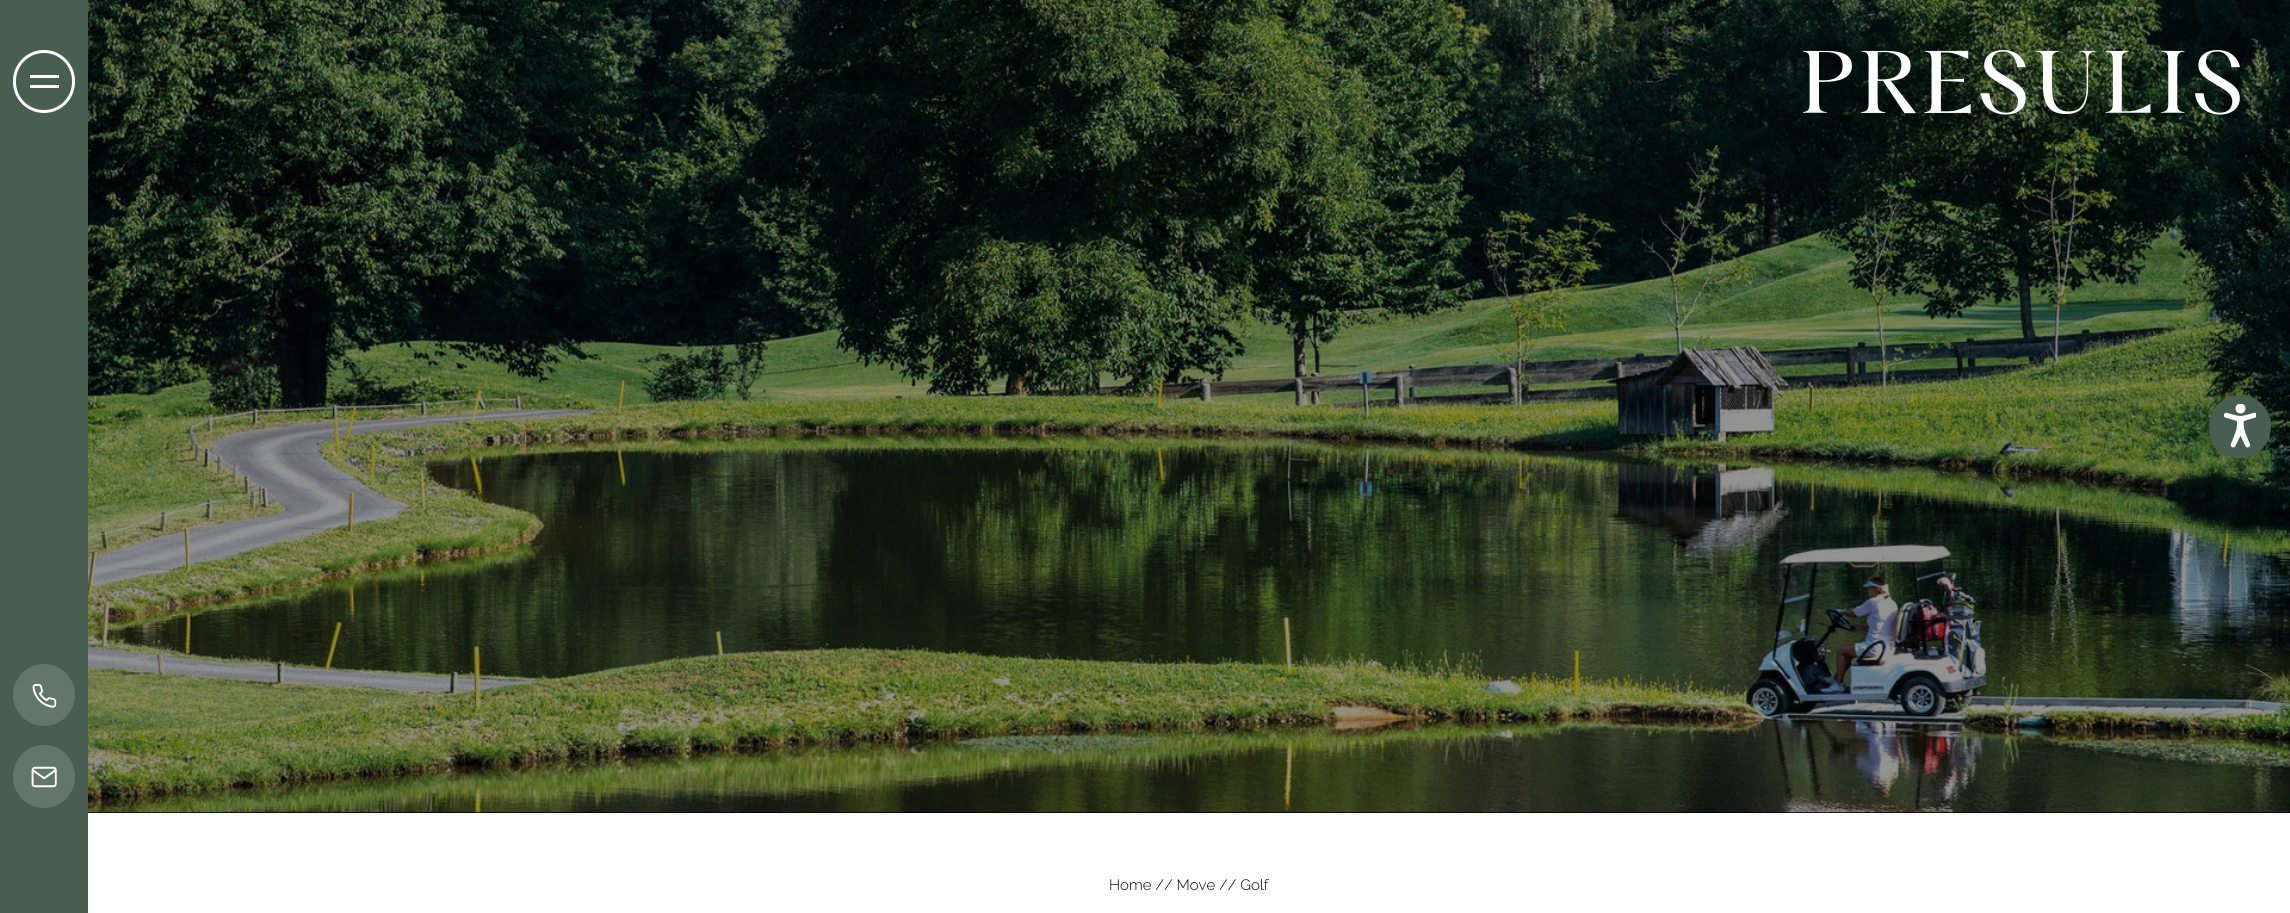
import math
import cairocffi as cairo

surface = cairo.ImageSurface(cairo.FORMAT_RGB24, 2290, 913)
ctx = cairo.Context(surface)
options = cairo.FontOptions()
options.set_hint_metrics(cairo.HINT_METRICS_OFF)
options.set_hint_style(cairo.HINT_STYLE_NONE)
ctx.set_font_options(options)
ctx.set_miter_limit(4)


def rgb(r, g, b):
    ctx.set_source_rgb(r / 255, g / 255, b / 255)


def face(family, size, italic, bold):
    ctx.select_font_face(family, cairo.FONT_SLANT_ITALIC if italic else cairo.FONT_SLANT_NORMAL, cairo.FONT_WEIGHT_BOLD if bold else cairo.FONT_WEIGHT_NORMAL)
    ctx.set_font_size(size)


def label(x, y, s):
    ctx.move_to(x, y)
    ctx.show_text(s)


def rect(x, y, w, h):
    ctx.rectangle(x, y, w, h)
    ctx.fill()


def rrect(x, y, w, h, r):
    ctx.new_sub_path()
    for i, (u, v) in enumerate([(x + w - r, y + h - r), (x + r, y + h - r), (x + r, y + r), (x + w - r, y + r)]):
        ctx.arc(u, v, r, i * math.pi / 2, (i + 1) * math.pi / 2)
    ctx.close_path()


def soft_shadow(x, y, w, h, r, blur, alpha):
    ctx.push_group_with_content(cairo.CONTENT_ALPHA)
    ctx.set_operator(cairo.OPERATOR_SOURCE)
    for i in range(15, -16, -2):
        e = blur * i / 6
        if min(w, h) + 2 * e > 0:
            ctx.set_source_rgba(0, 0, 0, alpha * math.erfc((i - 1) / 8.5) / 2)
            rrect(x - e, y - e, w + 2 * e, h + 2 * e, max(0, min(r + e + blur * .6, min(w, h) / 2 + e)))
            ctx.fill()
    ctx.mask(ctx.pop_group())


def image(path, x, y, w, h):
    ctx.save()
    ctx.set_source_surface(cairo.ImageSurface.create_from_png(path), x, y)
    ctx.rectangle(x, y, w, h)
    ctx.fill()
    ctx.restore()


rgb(255, 255, 255)
ctx.paint()
rgb(0, 0, 0)
rect(88, 812, 2202, 1)
image('image3.png', 88, 0, 2202, 813)
rgb(0, 0, 0)
soft_shadow(2208, 394, 65, 65, 32.5, 4, 0.22)
rgb(71, 94, 81)
rrect(2209, 395, 62, 63, 31)
ctx.fill()
image('image0.png', 2224, 404, 32, 44)
rect(0, 0, 88, 913)
rrect(14.5, 51.5, 59, 60, 29.5)
rgb(255, 255, 255)
ctx.set_line_width(3)
ctx.stroke()
rect(30, 75, 29, 3)
rect(30, 85, 29, 3)
rgb(99, 118, 107)
ctx.arc(44, 695, 31, 0, 2 * math.pi)
ctx.fill()
image('image1.png', 32, 684, 25, 24)
rrect(13, 745, 62, 63, 31)
ctx.fill()
image('image2.png', 31, 766, 26, 22)
image('image4.png', 1803, 50, 437, 65)
face('Raleway Thin', 15, 0, 0)
rgb(0, 0, 0)
label(1109, 890, 'Home // Move // Golf')
surface.write_to_png('render.png')
